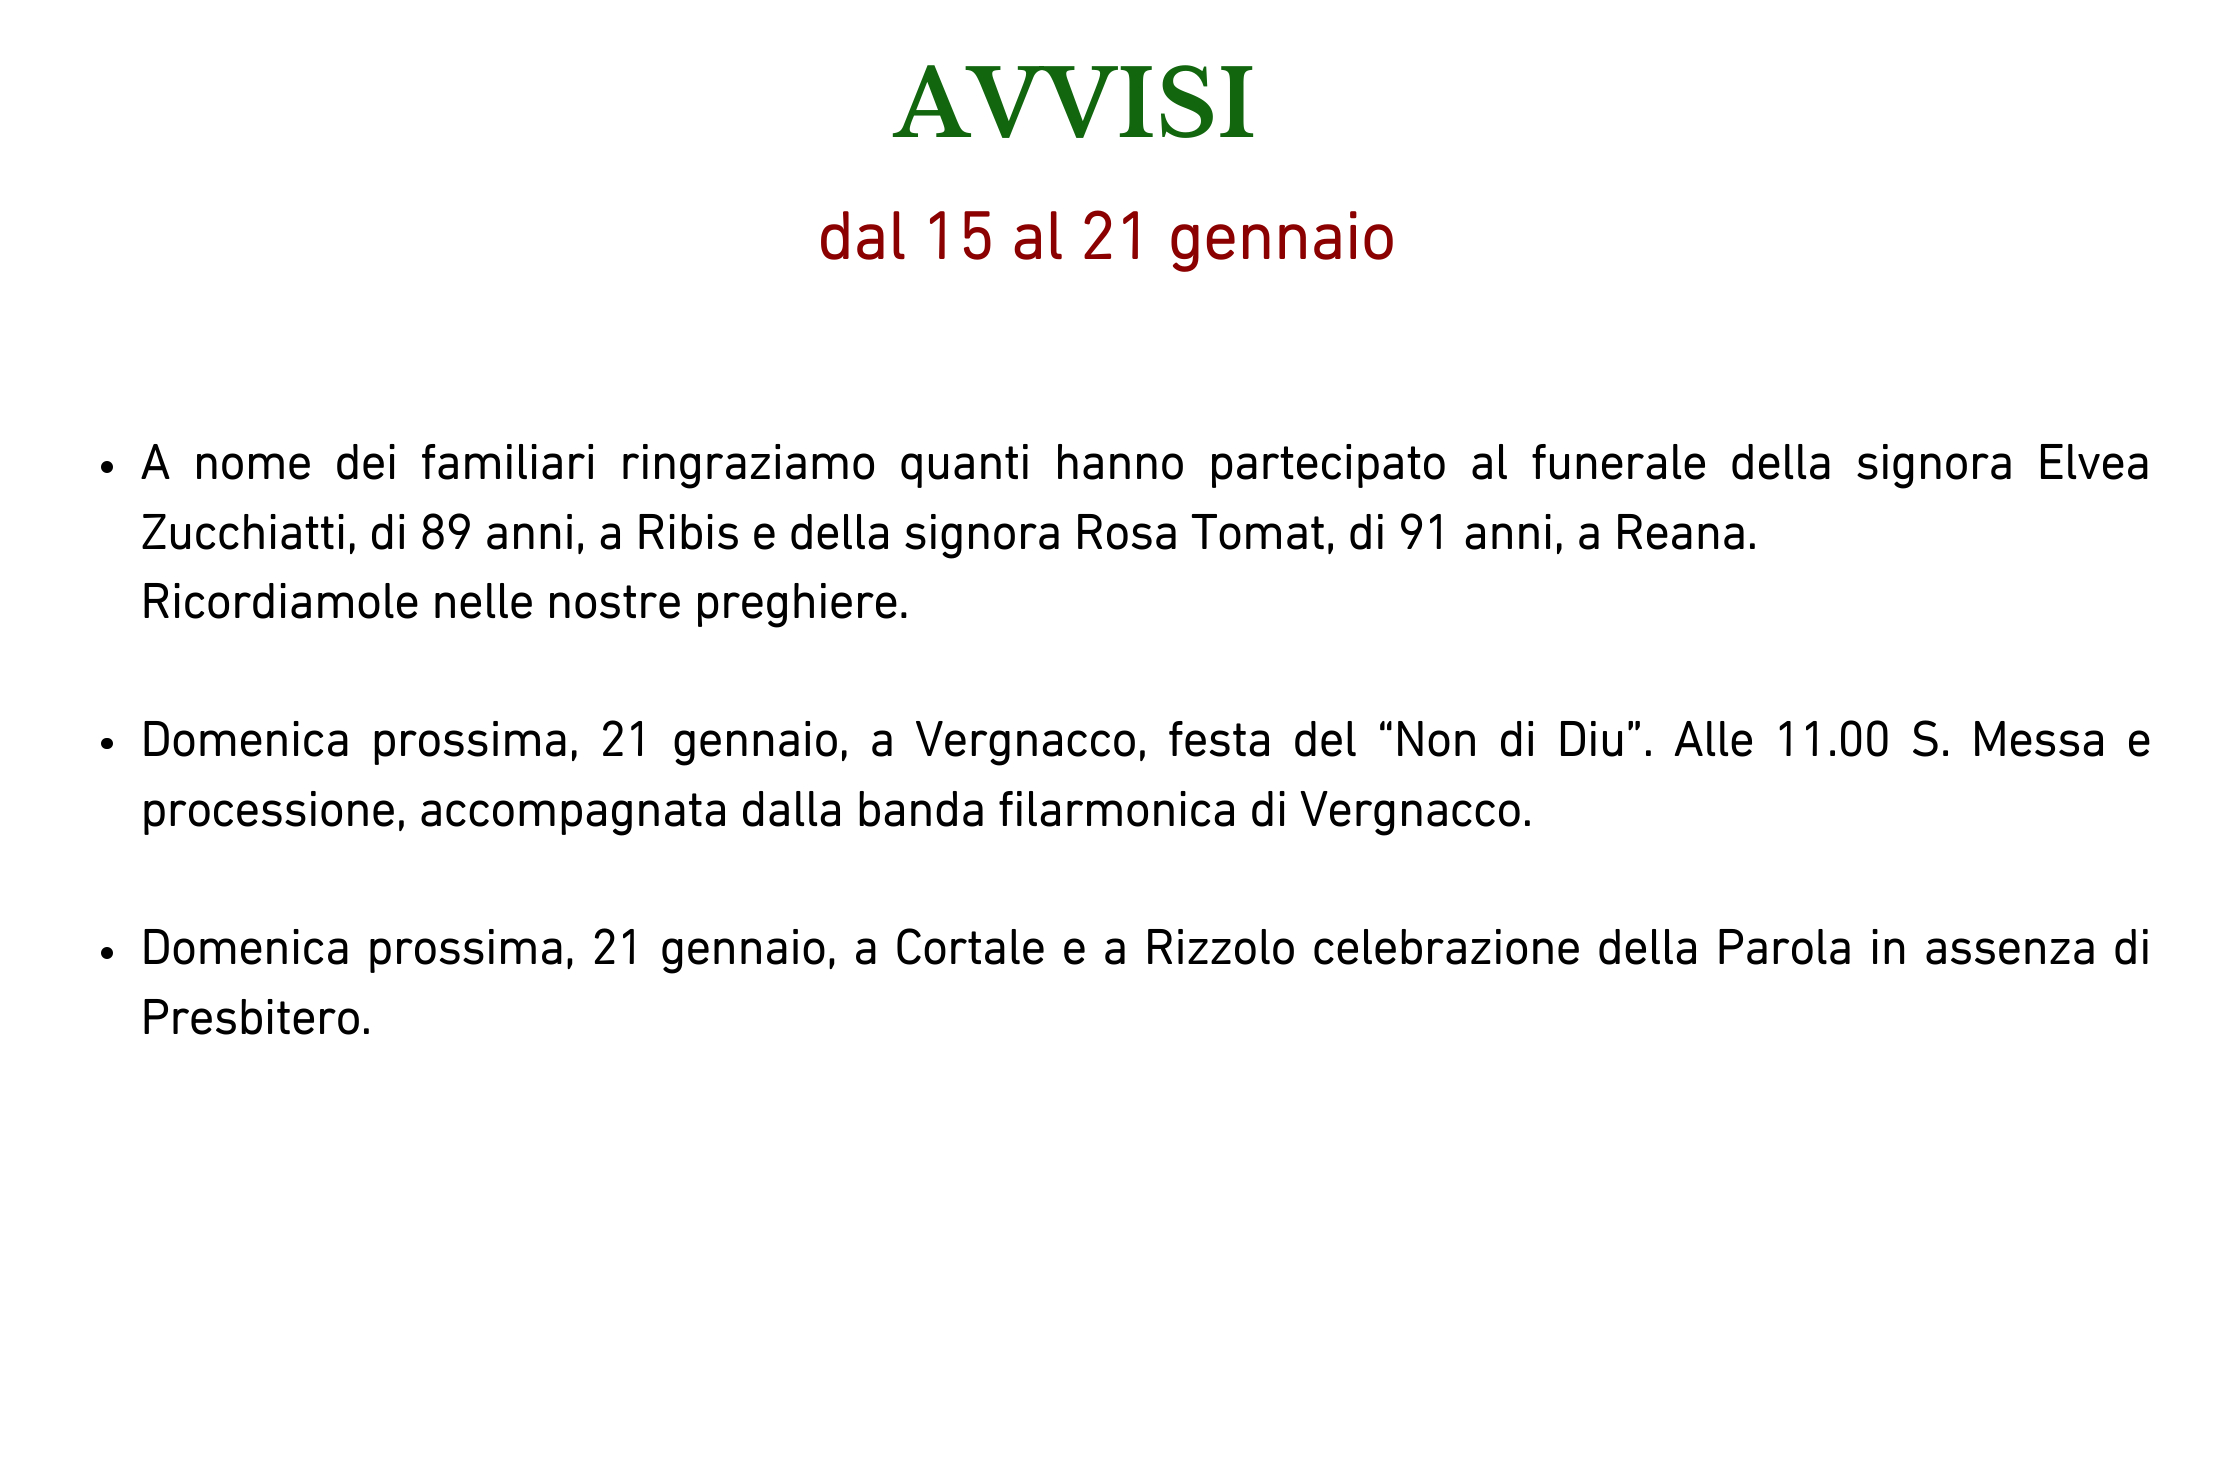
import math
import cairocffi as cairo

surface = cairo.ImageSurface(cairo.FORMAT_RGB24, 2218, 1470)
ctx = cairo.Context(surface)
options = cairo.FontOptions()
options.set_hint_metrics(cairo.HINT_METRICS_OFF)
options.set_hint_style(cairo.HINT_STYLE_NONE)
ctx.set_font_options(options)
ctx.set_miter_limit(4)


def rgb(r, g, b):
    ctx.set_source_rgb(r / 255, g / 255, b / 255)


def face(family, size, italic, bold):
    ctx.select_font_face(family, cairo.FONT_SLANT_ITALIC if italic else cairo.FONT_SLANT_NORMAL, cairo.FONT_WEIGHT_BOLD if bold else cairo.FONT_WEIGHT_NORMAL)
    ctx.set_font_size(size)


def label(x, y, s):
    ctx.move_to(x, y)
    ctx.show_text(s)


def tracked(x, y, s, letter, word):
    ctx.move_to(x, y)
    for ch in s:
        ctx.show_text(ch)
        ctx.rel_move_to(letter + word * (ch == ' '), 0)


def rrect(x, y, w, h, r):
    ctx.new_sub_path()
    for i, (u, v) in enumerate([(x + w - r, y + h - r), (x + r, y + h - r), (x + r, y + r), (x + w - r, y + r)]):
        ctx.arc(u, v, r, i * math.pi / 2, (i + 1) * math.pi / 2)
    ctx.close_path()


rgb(255, 255, 255)
ctx.paint()
face('Libre Baskerville', 92, 0, 1)
rgb(17, 102, 14)
label(894, 137, 'AVVISI')
face('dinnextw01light', 67.5, 0, 1)
rgb(139, 0, 0)
label(817, 259, 'dal 15 al 21 gennaio')
rgb(0, 0, 0)
ctx.new_path()
ctx.arc(107, 467, 6, 0, 2 * math.pi)
ctx.fill()
face('dinnextw01light', 49.5, 0, 1)
tracked(140, 479, 'A nome dei familiari ringraziamo quanti hanno partecipato al funerale della signora Elvea', 0, 10.75)
label(140, 549, 'Zucchiatti, di 89 anni, a Ribis e della signora Rosa Tomat, di 91 anni, a Reana.')
label(140, 618, 'Ricordiamole nelle nostre preghiere.')
rrect(101, 738, 12, 11, 5.5)
ctx.fill()
tracked(140, 756, 'Domenica prossima, 21 gennaio, a Vergnacco, festa del “Non di Diu”. Alle 11.00 S. Messa e', 0, 8)
label(140, 826, 'processione, accompagnata dalla banda filarmonica di Vergnacco.')
ctx.new_path()
ctx.arc(107, 953, 6, 0, 2 * math.pi)
ctx.fill()
tracked(140, 964, 'Domenica prossima, 21 gennaio, a Cortale e a Rizzolo celebrazione della Parola in assenza di', 0, 3.9)
label(140, 1034, 'Presbitero.')
surface.write_to_png('render.png')
